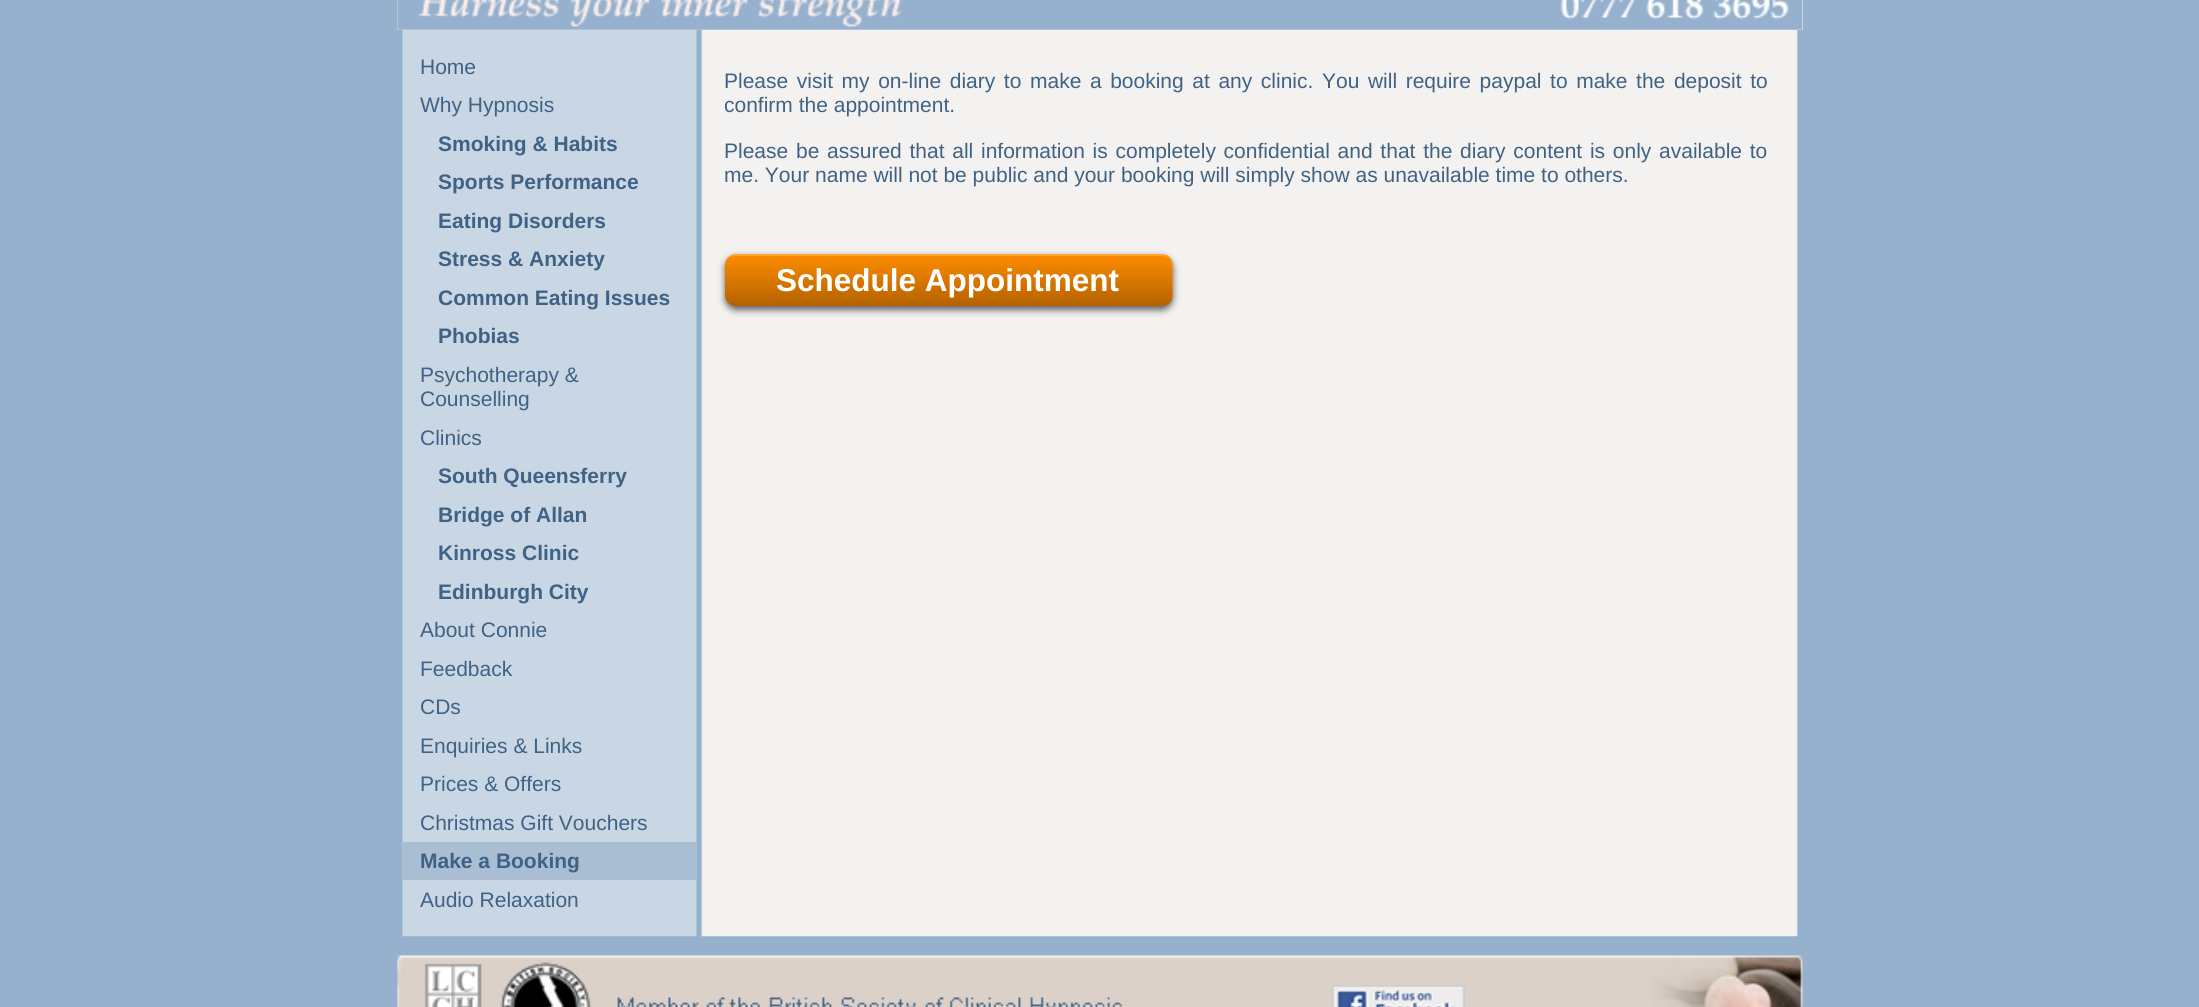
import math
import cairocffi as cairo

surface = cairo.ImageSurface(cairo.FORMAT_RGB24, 2199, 1007)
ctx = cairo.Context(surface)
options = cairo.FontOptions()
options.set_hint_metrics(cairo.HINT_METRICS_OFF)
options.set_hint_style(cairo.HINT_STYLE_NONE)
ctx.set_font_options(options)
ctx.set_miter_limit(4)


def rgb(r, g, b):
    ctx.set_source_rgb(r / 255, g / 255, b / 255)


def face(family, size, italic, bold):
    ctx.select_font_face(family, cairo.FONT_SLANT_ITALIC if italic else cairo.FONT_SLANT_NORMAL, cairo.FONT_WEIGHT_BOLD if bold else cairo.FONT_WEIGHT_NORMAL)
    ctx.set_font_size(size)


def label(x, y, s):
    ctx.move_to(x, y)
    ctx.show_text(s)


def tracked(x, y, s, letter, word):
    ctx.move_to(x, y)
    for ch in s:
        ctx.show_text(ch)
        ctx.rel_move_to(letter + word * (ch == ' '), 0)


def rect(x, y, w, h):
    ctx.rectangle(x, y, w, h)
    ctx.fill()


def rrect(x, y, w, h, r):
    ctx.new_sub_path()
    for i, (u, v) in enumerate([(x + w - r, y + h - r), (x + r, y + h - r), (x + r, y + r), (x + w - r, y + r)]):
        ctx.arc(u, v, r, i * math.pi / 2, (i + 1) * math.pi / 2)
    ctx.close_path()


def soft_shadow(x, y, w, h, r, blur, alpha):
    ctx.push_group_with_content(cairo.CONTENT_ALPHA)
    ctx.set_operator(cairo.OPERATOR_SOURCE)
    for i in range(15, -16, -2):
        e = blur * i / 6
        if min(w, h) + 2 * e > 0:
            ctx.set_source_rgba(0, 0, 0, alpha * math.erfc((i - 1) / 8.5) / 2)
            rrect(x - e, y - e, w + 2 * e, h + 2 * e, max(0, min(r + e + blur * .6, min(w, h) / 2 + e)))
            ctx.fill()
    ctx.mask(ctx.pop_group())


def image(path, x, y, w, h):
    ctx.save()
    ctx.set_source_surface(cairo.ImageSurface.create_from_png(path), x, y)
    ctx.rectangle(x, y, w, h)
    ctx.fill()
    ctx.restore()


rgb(150, 177, 205)
ctx.paint()
image('image0.png', 402, 30, 1396, 907)
rgb(255, 255, 255)
rect(397, 0, 1406, 30)
image('image2.png', 397, 29, 310, 1)
image('image1.png', 397, 0, 1406, 30)
face('Liberation Sans', 21, 0, 0)
rgb(63, 98, 133)
label(420, 74, 'Home')
label(420, 112, 'Why Hypnosis')
face('Liberation Sans', 21, 0, 1)
label(438, 151, 'Smoking & Habits')
label(438, 189, 'Sports Performance')
label(438, 228, 'Eating Disorders')
label(438, 266, 'Stress & Anxiety')
label(438, 305, 'Common Eating Issues')
label(438, 343, 'Phobias')
face('Liberation Sans', 21, 0, 0)
label(420, 382, 'Psychotherapy &')
label(420, 406, 'Counselling')
label(420, 445, 'Clinics')
face('Liberation Sans', 21, 0, 1)
label(438, 483, 'South Queensferry')
label(438, 522, 'Bridge of Allan')
label(438, 560, 'Kinross Clinic')
label(438, 599, 'Edinburgh City')
face('Liberation Sans', 21, 0, 0)
label(420, 637, 'About Connie')
label(420, 676, 'Feedback')
label(420, 714, 'CDs')
label(420, 753, 'Enquiries & Links')
label(420, 791, 'Prices & Offers')
label(420, 830, 'Christmas Gift Vouchers')
rgb(169, 189, 211)
rect(403, 842, 294, 38)
face('Liberation Sans', 21, 0, 1)
rgb(63, 98, 133)
label(420, 868, 'Make a Booking')
face('Liberation Sans', 21, 0, 0)
label(420, 907, 'Audio Relaxation')
tracked(724, 88, 'Please visit my on-line diary to make a booking at any clinic. You will require paypal to make the deposit to', 0, 2.75)
label(724, 112, 'confirm the appointment.')
tracked(724, 158, 'Please be assured that all information is completely confidential and that the diary content is only available to', 0, 1.9)
label(724, 182, 'me. Your name will not be public and your booking will simply show as unavailable time to others.')
rgb(0, 0, 0)
soft_shadow(725, 257, 448, 53, 11, 3.5, 0.6)
gradient = cairo.LinearGradient(949, 254, 949, 306)
gradient.add_color_stop_rgba(0, 1, 0.549, 0, 1)
gradient.add_color_stop_rgba(1, 0.702, 0.384, 0, 1)
ctx.set_source(gradient)
rrect(725, 254, 448, 52, 11)
ctx.fill()
ctx.set_source_rgba(1, 1, 1, 0.2)
ctx.new_path()
ctx.move_to(735, 256)
ctx.line_to(1162, 256)
ctx.curve_to(1174, 256, 1172, 268, 1172, 277)
ctx.line_to(1172, 300)
ctx.curve_to(1173, 299, 1173, 297, 1173, 295)
ctx.line_to(1173, 265)
ctx.curve_to(1173, 259, 1168, 254, 1162, 254)
ctx.line_to(736, 254)
ctx.curve_to(732, 254, 728, 256, 726, 260)
ctx.curve_to(728, 257, 732, 256, 735, 256)
ctx.close_path()
ctx.fill()
face('Liberation Sans', 31.5, 0, 1)
rgb(255, 255, 255)
label(776, 291, 'Schedule Appointment')
image('image3.png', 397, 936, 1406, 71)
image('image4.png', 1331, 985, 134, 22)
surface.write_to_png('render.png')
